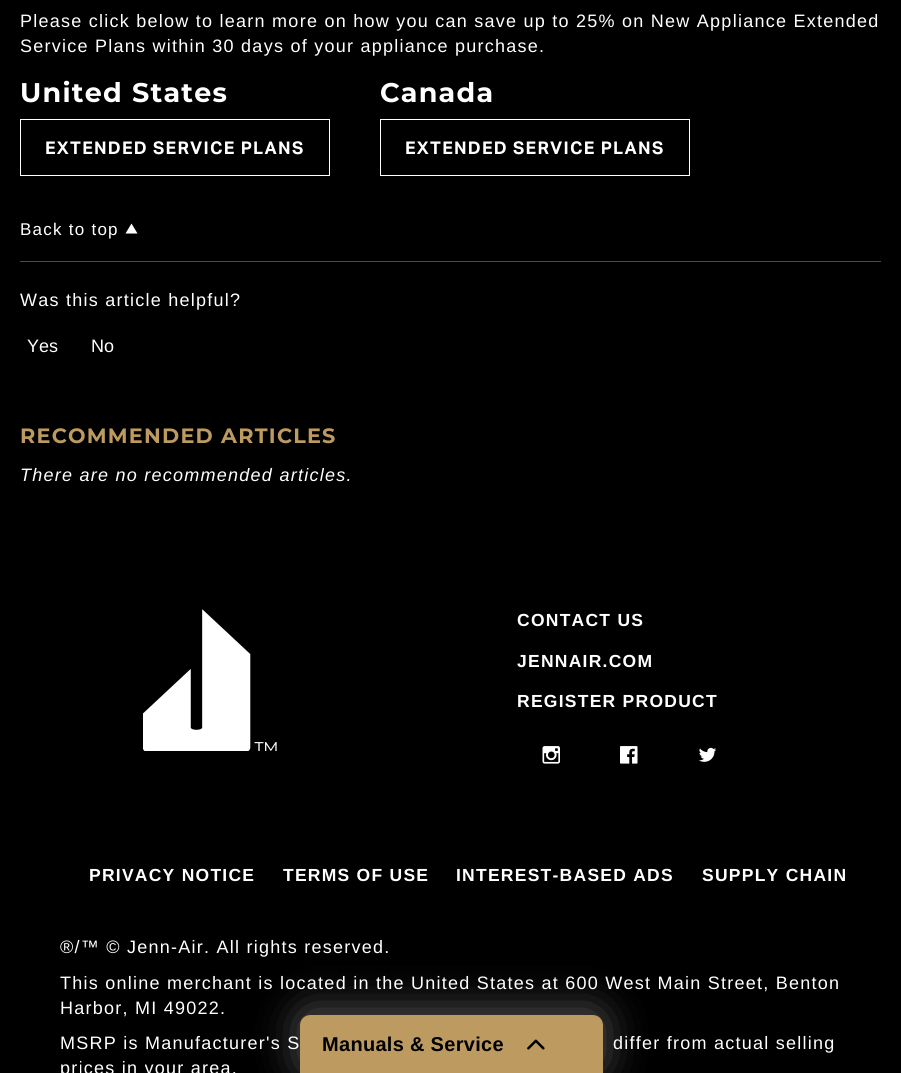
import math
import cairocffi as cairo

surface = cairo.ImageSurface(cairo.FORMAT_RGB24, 901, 1073)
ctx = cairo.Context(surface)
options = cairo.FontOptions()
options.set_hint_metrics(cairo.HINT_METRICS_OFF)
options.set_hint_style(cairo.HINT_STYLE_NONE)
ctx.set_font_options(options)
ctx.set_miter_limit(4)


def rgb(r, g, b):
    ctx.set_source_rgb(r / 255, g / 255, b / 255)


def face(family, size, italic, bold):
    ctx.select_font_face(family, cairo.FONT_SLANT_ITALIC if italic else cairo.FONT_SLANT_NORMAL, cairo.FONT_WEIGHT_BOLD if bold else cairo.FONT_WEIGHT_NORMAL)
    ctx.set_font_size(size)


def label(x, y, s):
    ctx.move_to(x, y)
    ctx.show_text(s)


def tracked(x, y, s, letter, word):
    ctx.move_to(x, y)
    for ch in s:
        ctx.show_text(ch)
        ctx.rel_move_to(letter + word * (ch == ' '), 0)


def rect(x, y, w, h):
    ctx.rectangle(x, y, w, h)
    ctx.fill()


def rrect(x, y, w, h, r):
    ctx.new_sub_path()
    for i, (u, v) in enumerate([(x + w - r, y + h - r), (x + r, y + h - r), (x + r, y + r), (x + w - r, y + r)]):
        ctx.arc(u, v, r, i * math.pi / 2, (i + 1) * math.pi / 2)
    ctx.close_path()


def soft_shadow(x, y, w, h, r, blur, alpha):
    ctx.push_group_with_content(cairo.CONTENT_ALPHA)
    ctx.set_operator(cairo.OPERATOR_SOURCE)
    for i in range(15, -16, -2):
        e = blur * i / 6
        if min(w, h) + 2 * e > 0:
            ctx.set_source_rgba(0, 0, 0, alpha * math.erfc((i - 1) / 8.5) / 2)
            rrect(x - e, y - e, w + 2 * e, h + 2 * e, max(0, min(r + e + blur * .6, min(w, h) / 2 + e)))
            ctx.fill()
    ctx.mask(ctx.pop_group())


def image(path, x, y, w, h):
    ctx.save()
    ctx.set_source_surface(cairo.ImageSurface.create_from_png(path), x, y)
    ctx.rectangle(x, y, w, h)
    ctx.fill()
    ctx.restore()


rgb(0, 0, 0)
ctx.paint()
face('Liberation Sans', 18, 0, 0)
rgb(255, 255, 255)
tracked(20, 27, 'Please click below to learn more on how you can save up to 25% on New Appliance Extended', 1.25, 0)
tracked(20, 52, 'Service Plans within 30 days of your appliance purchase.', 1.25, 0)
face('Montserrat', 27, 0, 1)
tracked(20, 102, 'United States', 1.25, 0)
ctx.rectangle(20.5, 119.5, 309, 56)
ctx.set_line_width(1)
ctx.stroke()
face('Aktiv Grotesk', 17.5, 0, 1)
tracked(45, 154, 'EXTENDED SERVICE PLANS', 1.25, 0)
face('Montserrat', 27, 0, 1)
tracked(380, 102, 'Canada', 1.25, 0)
ctx.rectangle(380.5, 119.5, 309, 56)
ctx.stroke()
face('Aktiv Grotesk', 17.5, 0, 1)
tracked(405, 154, 'EXTENDED SERVICE PLANS', 1.25, 0)
rgb(189, 155, 96)
ctx.new_path()
ctx.move_to(310, 1015)
ctx.line_to(593, 1015)
ctx.curve_to(598.5, 1015, 603, 1019.5, 603, 1025)
ctx.line_to(603, 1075)
ctx.line_to(300, 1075)
ctx.line_to(300, 1025)
ctx.curve_to(300, 1019.5, 304.5, 1015, 310, 1015)
ctx.close_path()
ctx.fill()
ctx.save()
ctx.set_fill_rule(cairo.FILL_RULE_EVEN_ODD)
ctx.new_path()
ctx.move_to(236, 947)
ctx.line_to(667, 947)
ctx.line_to(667, 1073)
ctx.line_to(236, 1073)
ctx.close_path()
ctx.move_to(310, 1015)
ctx.line_to(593, 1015)
ctx.curve_to(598.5, 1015, 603, 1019.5, 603, 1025)
ctx.line_to(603, 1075)
ctx.line_to(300, 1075)
ctx.line_to(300, 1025)
ctx.curve_to(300, 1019.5, 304.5, 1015, 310, 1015)
ctx.close_path()
ctx.clip()
rgb(255, 255, 255)
soft_shadow(300, 1011, 303, 60, 10, 21, 0.35)
ctx.restore()
face('Liberation Sans', 20, 0, 1)
rgb(0, 0, 0)
tracked(322, 1051, 'Manuals & Service', 0.3, 0)
image('image0.png', 527, 1039, 18, 11)
rgb(74, 74, 74)
rect(20, 261, 861, 1)
face('Liberation Sans', 17, 0, 0)
rgb(255, 255, 255)
tracked(20, 235, 'Back to top', 1.25, 0)
ctx.new_path()
ctx.move_to(125.5, 233.5)
ctx.line_to(137.5, 233.5)
ctx.line_to(131.5, 223.5)
ctx.close_path()
ctx.fill()
face('Liberation Sans', 18, 0, 0)
tracked(20, 306, 'Was this article helpful?', 1.25, 0)
label(27, 352, 'Yes')
label(91, 352, 'No')
face('Montserrat', 20.75, 0, 1)
rgb(189, 155, 96)
tracked(20, 443, 'RECOMMENDED ARTICLES', 1.25, 0)
face('Liberation Sans', 18, 1, 0)
rgb(255, 255, 255)
tracked(20, 481, 'There are no recommended articles.', 1.25, 0)
image('image1.png', 143, 609, 134, 142)
face('Liberation Sans', 17.5, 0, 1)
tracked(517, 626, 'CONTACT US', 1.25, 0)
tracked(517, 667, 'JENNAIR.COM', 1.25, 0)
tracked(517, 707, 'REGISTER PRODUCT', 1.25, 0)
image('image2.png', 542, 746, 18, 18)
image('image3.png', 620, 746, 18, 18)
image('image4.png', 699, 747, 18, 15)
tracked(89, 881, 'PRIVACY NOTICE', 1.25, 0)
tracked(283, 881, 'TERMS OF USE', 1.25, 0)
tracked(456, 881, 'INTEREST-BASED ADS', 1.25, 0)
tracked(702, 881, 'SUPPLY CHAIN', 1.25, 0)
face('Liberation Sans', 18, 0, 0)
tracked(60, 953, '®/™ © Jenn-Air. All rights reserved.', 1.25, 0)
tracked(60, 989, 'This online merchant is located in the United States at 600 West Main Street, Benton', 1.25, 0)
tracked(60, 1014, 'Harbor, MI 49022.', 1.25, 0)
tracked(60, 1049, 'MSRP is Manufacturer\'s S', 1.25, 0)
tracked(613, 1049, 'differ from actual selling', 1.25, 0)
tracked(60, 1074, 'prices in your area.', 1.25, 0)
surface.write_to_png('render.png')
